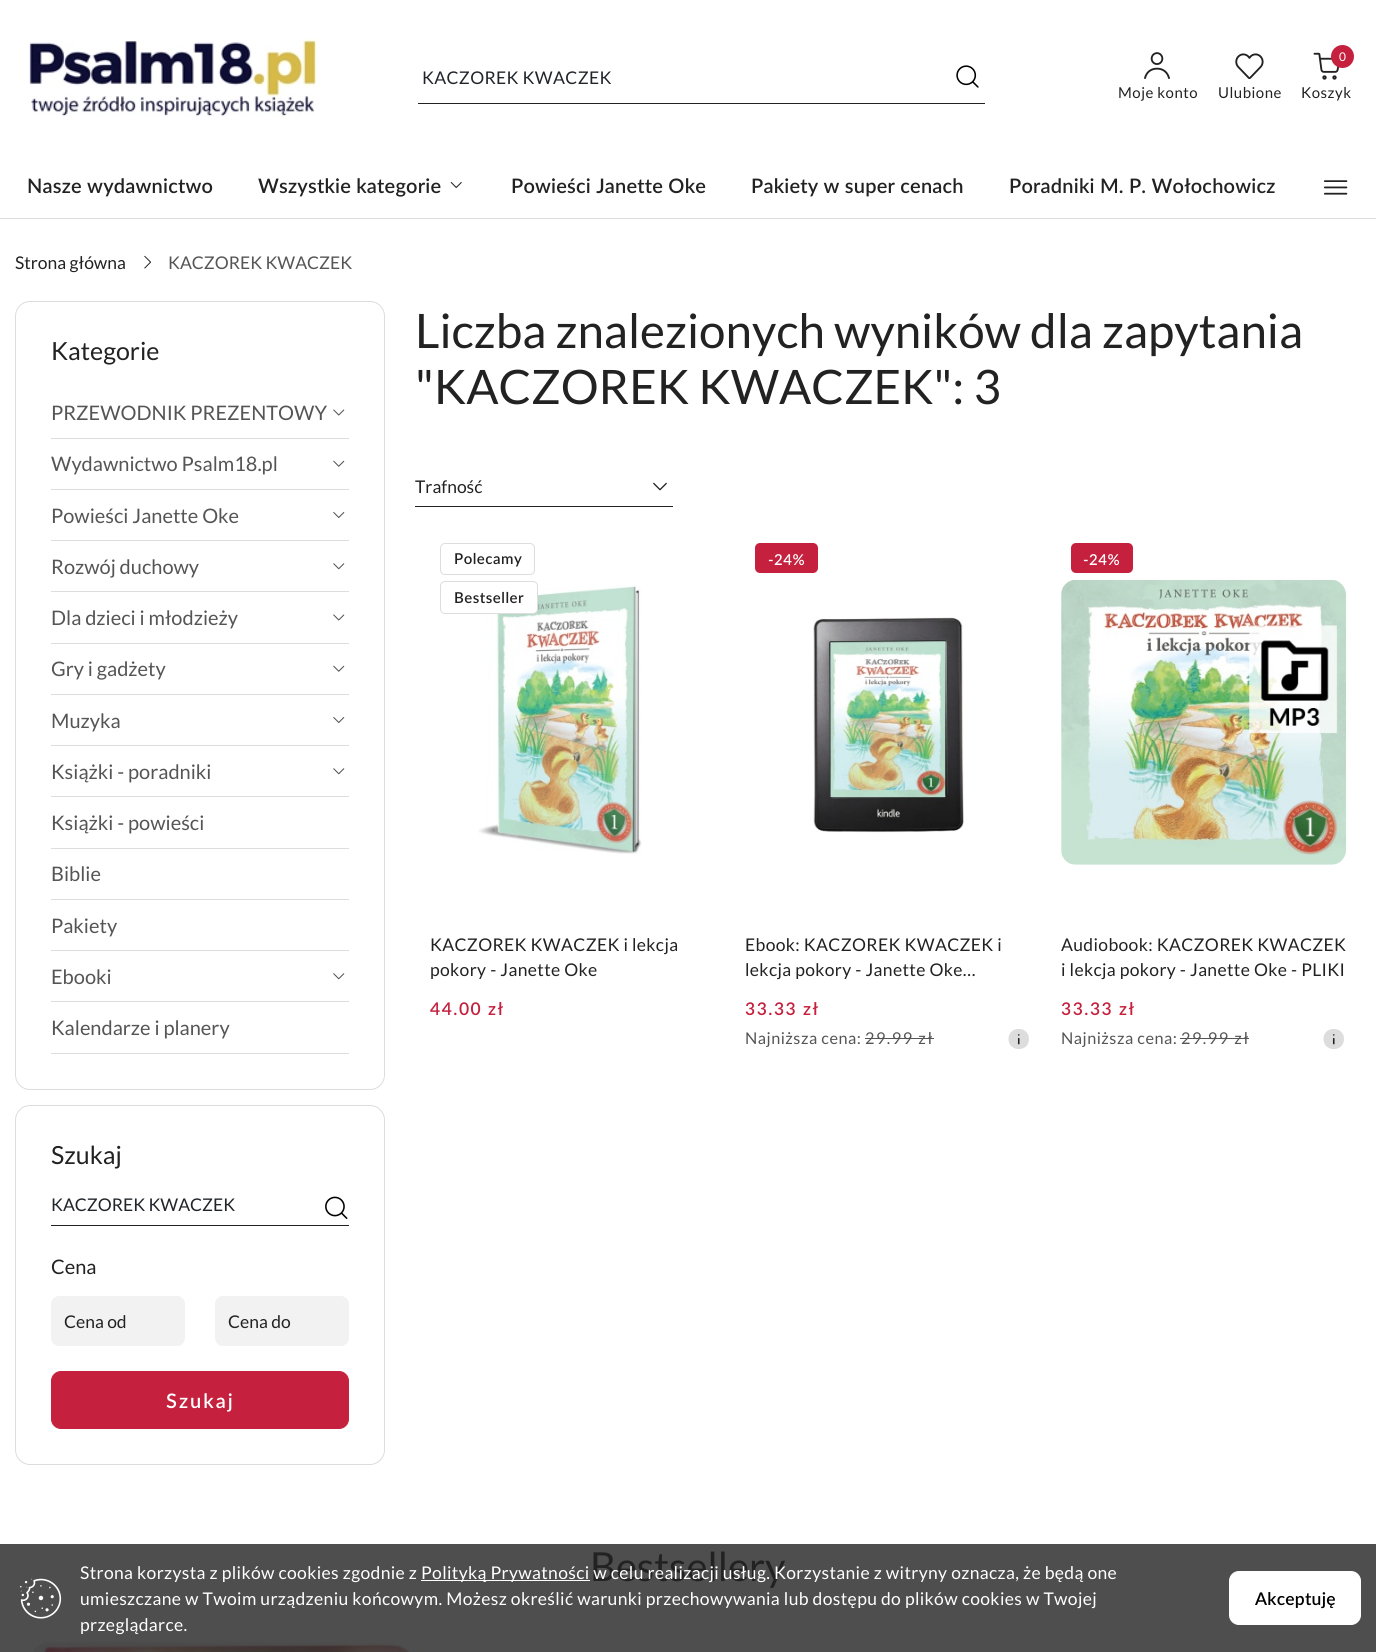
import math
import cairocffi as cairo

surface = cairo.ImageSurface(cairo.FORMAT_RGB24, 1376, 1652)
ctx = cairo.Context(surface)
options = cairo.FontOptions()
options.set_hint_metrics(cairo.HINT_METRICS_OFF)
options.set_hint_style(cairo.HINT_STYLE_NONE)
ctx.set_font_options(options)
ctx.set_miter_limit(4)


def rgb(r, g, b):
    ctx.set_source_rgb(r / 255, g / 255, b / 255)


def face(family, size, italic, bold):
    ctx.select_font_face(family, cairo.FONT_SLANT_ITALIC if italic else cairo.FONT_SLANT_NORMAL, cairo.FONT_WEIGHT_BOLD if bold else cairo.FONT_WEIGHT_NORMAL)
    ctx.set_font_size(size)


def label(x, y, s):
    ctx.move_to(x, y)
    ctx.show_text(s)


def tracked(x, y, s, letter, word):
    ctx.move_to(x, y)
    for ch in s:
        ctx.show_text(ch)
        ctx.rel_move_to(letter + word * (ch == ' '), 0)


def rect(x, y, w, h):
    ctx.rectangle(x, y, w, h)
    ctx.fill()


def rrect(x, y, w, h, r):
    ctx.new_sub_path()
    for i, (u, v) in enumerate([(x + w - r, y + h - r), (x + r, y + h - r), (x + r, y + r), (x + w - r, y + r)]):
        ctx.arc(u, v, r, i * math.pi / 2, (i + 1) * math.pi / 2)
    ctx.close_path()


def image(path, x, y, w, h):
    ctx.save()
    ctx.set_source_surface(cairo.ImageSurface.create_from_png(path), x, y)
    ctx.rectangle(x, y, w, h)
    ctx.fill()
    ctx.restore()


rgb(255, 255, 255)
ctx.paint()
rgb(78, 78, 78)
rect(0, 1544, 1376, 108)
image('image0.png', 29, 39, 288, 78)
rgb(34, 34, 34)
rect(418, 103, 567, 1)
face('Lato', 17.5, 0, 0)
rgb(33, 37, 41)
tracked(422, 84, 'KACZOREK KWACZEK', 0.35, 0)
image('image1.png', 956, 65, 23, 23)
image('image2.png', 1144, 52, 26, 27)
face('Lato', 15, 0, 0)
rgb(34, 34, 34)
tracked(1118, 98, 'Moje konto', 0.5, 0)
image('image3.png', 1235, 53, 29, 27)
tracked(1218, 98, 'Ulubione', 0.5, 0)
image('image4.png', 1313, 52, 27, 28)
rgb(197, 32, 61)
ctx.arc(1342.5, 56.5, 11.5, 0, 2 * math.pi)
ctx.fill()
face('Lato', 12, 0, 0)
rgb(255, 255, 255)
label(1339, 61, '0')
face('Lato', 15, 0, 0)
rgb(34, 34, 34)
tracked(1301, 98, 'Koszyk', 0.5, 0)
rgb(221, 221, 221)
rect(0, 218, 1376, 1)
face('Lato SemiBold', 20, 0, 0)
rgb(34, 34, 34)
tracked(27, 193, 'Nasze wydawnictwo', 0.2, 0)
tracked(258, 193, 'Wszystkie kategorie', 0.2, 0)
image('image5.png', 450, 182, 12, 6)
tracked(511, 193, 'Powieści Janette Oke', 0.2, 0)
tracked(751, 193, 'Pakiety w super cenach', 0.2, 0)
tracked(1009, 193, 'Poradniki M. P. Wołochowicz', 0.2, 0)
image('image6.png', 1324, 180, 24, 15)
face('Lato', 17.5, 0, 0)
label(15, 269, 'Strona główna')
image('image7.png', 144, 255, 7, 14)
rgb(85, 85, 85)
label(168, 269, 'KACZOREK KWACZEK')
rrect(15.5, 301.5, 369, 788, 14.5)
rgb(221, 221, 221)
ctx.set_line_width(1)
ctx.stroke()
face('Lato', 25, 0, 0)
rgb(34, 34, 34)
label(51, 360, 'Kategorie')
rgb(221, 221, 221)
rect(51, 438, 298, 1)
face('Lato', 20, 0, 0)
rgb(85, 85, 85)
label(51, 420, 'PRZEWODNIK PREZENTOWY')
image('image8.png', 333, 409, 12, 7)
rgb(221, 221, 221)
rect(51, 489, 298, 1)
rgb(85, 85, 85)
label(51, 471, 'Wydawnictwo Psalm18.pl')
image('image9.png', 333, 460, 12, 7)
rgb(221, 221, 221)
rect(51, 540, 298, 1)
rgb(85, 85, 85)
label(51, 523, 'Powieści Janette Oke')
image('image10.png', 333, 512, 12, 6)
rgb(221, 221, 221)
rect(51, 591, 298, 1)
rgb(85, 85, 85)
label(51, 574, 'Rozwój duchowy')
image('image11.png', 333, 563, 12, 7)
rgb(221, 221, 221)
rect(51, 643, 298, 1)
rgb(85, 85, 85)
label(51, 625, 'Dla dzieci i młodzieży')
image('image8.png', 333, 614, 12, 7)
rgb(221, 221, 221)
rect(51, 694, 298, 1)
rgb(85, 85, 85)
label(51, 676, 'Gry i gadżety')
image('image9.png', 333, 665, 12, 7)
rgb(221, 221, 221)
rect(51, 745, 298, 1)
rgb(85, 85, 85)
label(51, 728, 'Muzyka')
image('image10.png', 333, 717, 12, 6)
rgb(221, 221, 221)
rect(51, 796, 298, 1)
rgb(85, 85, 85)
label(51, 779, 'Książki - poradniki')
image('image11.png', 333, 768, 12, 7)
rgb(221, 221, 221)
rect(51, 848, 298, 1)
rgb(85, 85, 85)
label(51, 830, 'Książki - powieści')
rgb(221, 221, 221)
rect(51, 899, 298, 1)
rgb(85, 85, 85)
label(51, 881, 'Biblie')
rgb(221, 221, 221)
rect(51, 950, 298, 1)
rgb(85, 85, 85)
label(51, 933, 'Pakiety')
rgb(221, 221, 221)
rect(51, 1001, 298, 1)
rgb(85, 85, 85)
label(51, 984, 'Ebooki')
image('image11.png', 333, 973, 12, 7)
rgb(221, 221, 221)
rect(51, 1053, 298, 1)
rgb(85, 85, 85)
label(51, 1035, 'Kalendarze i planery')
rrect(15.5, 1105.5, 369, 359, 14.5)
rgb(221, 221, 221)
ctx.stroke()
face('Lato', 25, 0, 0)
rgb(34, 34, 34)
label(51, 1164, 'Szukaj')
rect(51, 1225, 298, 1)
face('Lato', 17.5, 0, 0)
rgb(33, 37, 41)
label(51, 1211, 'KACZOREK KWACZEK')
image('image12.png', 325, 1196, 23, 23)
face('Lato', 20, 0, 0)
rgb(34, 34, 34)
label(51, 1274, 'Cena')
rgb(242, 242, 242)
rrect(51, 1296, 134, 50, 8)
ctx.fill()
face('Lato', 17.5, 0, 0)
rgb(34, 34, 34)
label(64, 1328, 'Cena od')
rgb(242, 242, 242)
rrect(215, 1296, 134, 50, 8)
ctx.fill()
rgb(34, 34, 34)
label(228, 1328, 'Cena do')
rgb(197, 32, 61)
rrect(51.5, 1371.5, 297, 57, 9.5)
ctx.fill_preserve()
ctx.stroke()
face('Lato SemiBold', 20, 0, 0)
rgb(255, 255, 255)
tracked(166, 1408, 'Szukaj', 2, 0)
face('Lato', 47.5, 0, 0)
rgb(34, 34, 34)
label(415, 348, 'Liczba znalezionych wyników dla zapytania')
label(415, 404, '"KACZOREK KWACZEK": 3')
rect(415, 506, 258, 1)
face('Lato', 17.5, 0, 0)
label(415, 493, 'Trafność')
image('image13.png', 653, 482, 14, 9)
rrect(440.5, 543.5, 94, 31, 4.5)
rgb(221, 221, 221)
ctx.stroke()
face('Lato SemiBold', 15, 0, 0)
rgb(34, 34, 34)
tracked(454, 564, 'Polecamy', 0.5, 0)
image('image14.png', 478, 585, 164, 269)
rgb(255, 255, 255)
rrect(440.5, 581.5, 97, 32, 4.5)
ctx.fill_preserve()
rgb(221, 221, 221)
ctx.stroke()
rgb(34, 34, 34)
tracked(454, 603, 'Bestseller', 0.5, 0)
face('Lato', 17.5, 0, 0)
tracked(430, 951, 'KACZOREK KWACZEK i lekcja', 0.35, 0)
tracked(430, 976, 'pokory - Janette Oke', 0.35, 0)
face('Lato SemiBold', 17.5, 0, 0)
rgb(197, 32, 61)
tracked(430, 1015, '44.00 zł', 1.5, 0)
rrect(755, 543, 63, 30, 5)
ctx.fill()
face('Lato SemiBold', 15, 0, 0)
rgb(255, 255, 255)
tracked(768, 565, '-24%', 0.5, 0)
image('image15.png', 813, 617, 151, 216)
face('Lato', 17.5, 0, 0)
rgb(34, 34, 34)
tracked(745, 951, 'Ebook: KACZOREK KWACZEK i', 0.35, 0)
tracked(745, 976, 'lekcja pokory - Janette Oke…', 0.35, 0)
face('Lato SemiBold', 17.5, 0, 0)
rgb(197, 32, 61)
tracked(745, 1015, '33.33 zł', 1.5, 0)
face('Lato', 16.25, 0, 0)
rgb(85, 85, 85)
tracked(745, 1044, 'Najniższa cena:', 0.5, 0)
tracked(865, 1044, '29.99 zł', 1.5, 0)
rect(865, 1038, 69, 1)
rgb(221, 221, 221)
ctx.new_path()
ctx.move_to(1029, 1039)
ctx.curve_to(1029, 1052.5, 1008.5, 1052.5, 1008.5, 1039)
ctx.curve_to(1008.5, 1025.5, 1029, 1025.5, 1029, 1039)
ctx.close_path()
ctx.fill()
image('image16.png', 1017, 1034, 3, 11)
rgb(197, 32, 61)
rrect(1071, 543, 62, 30, 5)
ctx.fill()
face('Lato SemiBold', 15, 0, 0)
rgb(255, 255, 255)
tracked(1083, 565, '-24%', 0.5, 0)
image('image17.png', 1061, 580, 285, 285)
face('Lato', 17.5, 0, 0)
rgb(34, 34, 34)
tracked(1061, 951, 'Audiobook: KACZOREK KWACZEK', 0.35, 0)
tracked(1061, 976, 'i lekcja pokory - Janette Oke - PLIKI', 0.35, 0)
face('Lato SemiBold', 17.5, 0, 0)
rgb(197, 32, 61)
tracked(1061, 1015, '33.33 zł', 1.5, 0)
face('Lato', 16.25, 0, 0)
rgb(85, 85, 85)
tracked(1061, 1044, 'Najniższa cena:', 0.5, 0)
tracked(1181, 1044, '29.99 zł', 1.5, 0)
rect(1180, 1038, 69, 1)
rgb(221, 221, 221)
ctx.new_path()
ctx.move_to(1344, 1039)
ctx.curve_to(1344, 1052.5, 1323.5, 1052.5, 1323.5, 1039)
ctx.curve_to(1323.5, 1025.5, 1344, 1025.5, 1344, 1039)
ctx.close_path()
ctx.fill()
image('image16.png', 1332, 1034, 3, 11)
face('Lato', 40, 0, 0)
rgb(34, 34, 34)
label(590, 1581, 'Bestsellery')
image('image18.png', 33, 1642, 390, 10)
image('image19.png', 20, 1578, 42, 41)
face('Lato', 17.5, 0, 0)
rgb(255, 255, 255)
tracked(80, 1579, 'Strona korzysta z plików cookies zgodnie z', 0.35, 0)
rect(421, 1580, 169, 1)
tracked(421, 1579, 'Polityką Prywatności w celu realizacji usług. Korzystanie z witryny oznacza, że będą one', 0.35, 0)
tracked(80, 1605, 'umieszczane w Twoim urządzeniu końcowym. Możesz określić warunki przechowywania lub dostępu do plików cookies w Twojej', 0.35, 0)
tracked(80, 1631, 'przeglądarce.', 0.35, 0)
rrect(1229.5, 1571.5, 131, 53, 9.5)
ctx.fill_preserve()
ctx.stroke()
face('Lato SemiBold', 17.5, 0, 0)
rgb(0, 0, 0)
tracked(1255, 1605, 'Akceptuję', 0.25, 0)
surface.write_to_png('render.png')
